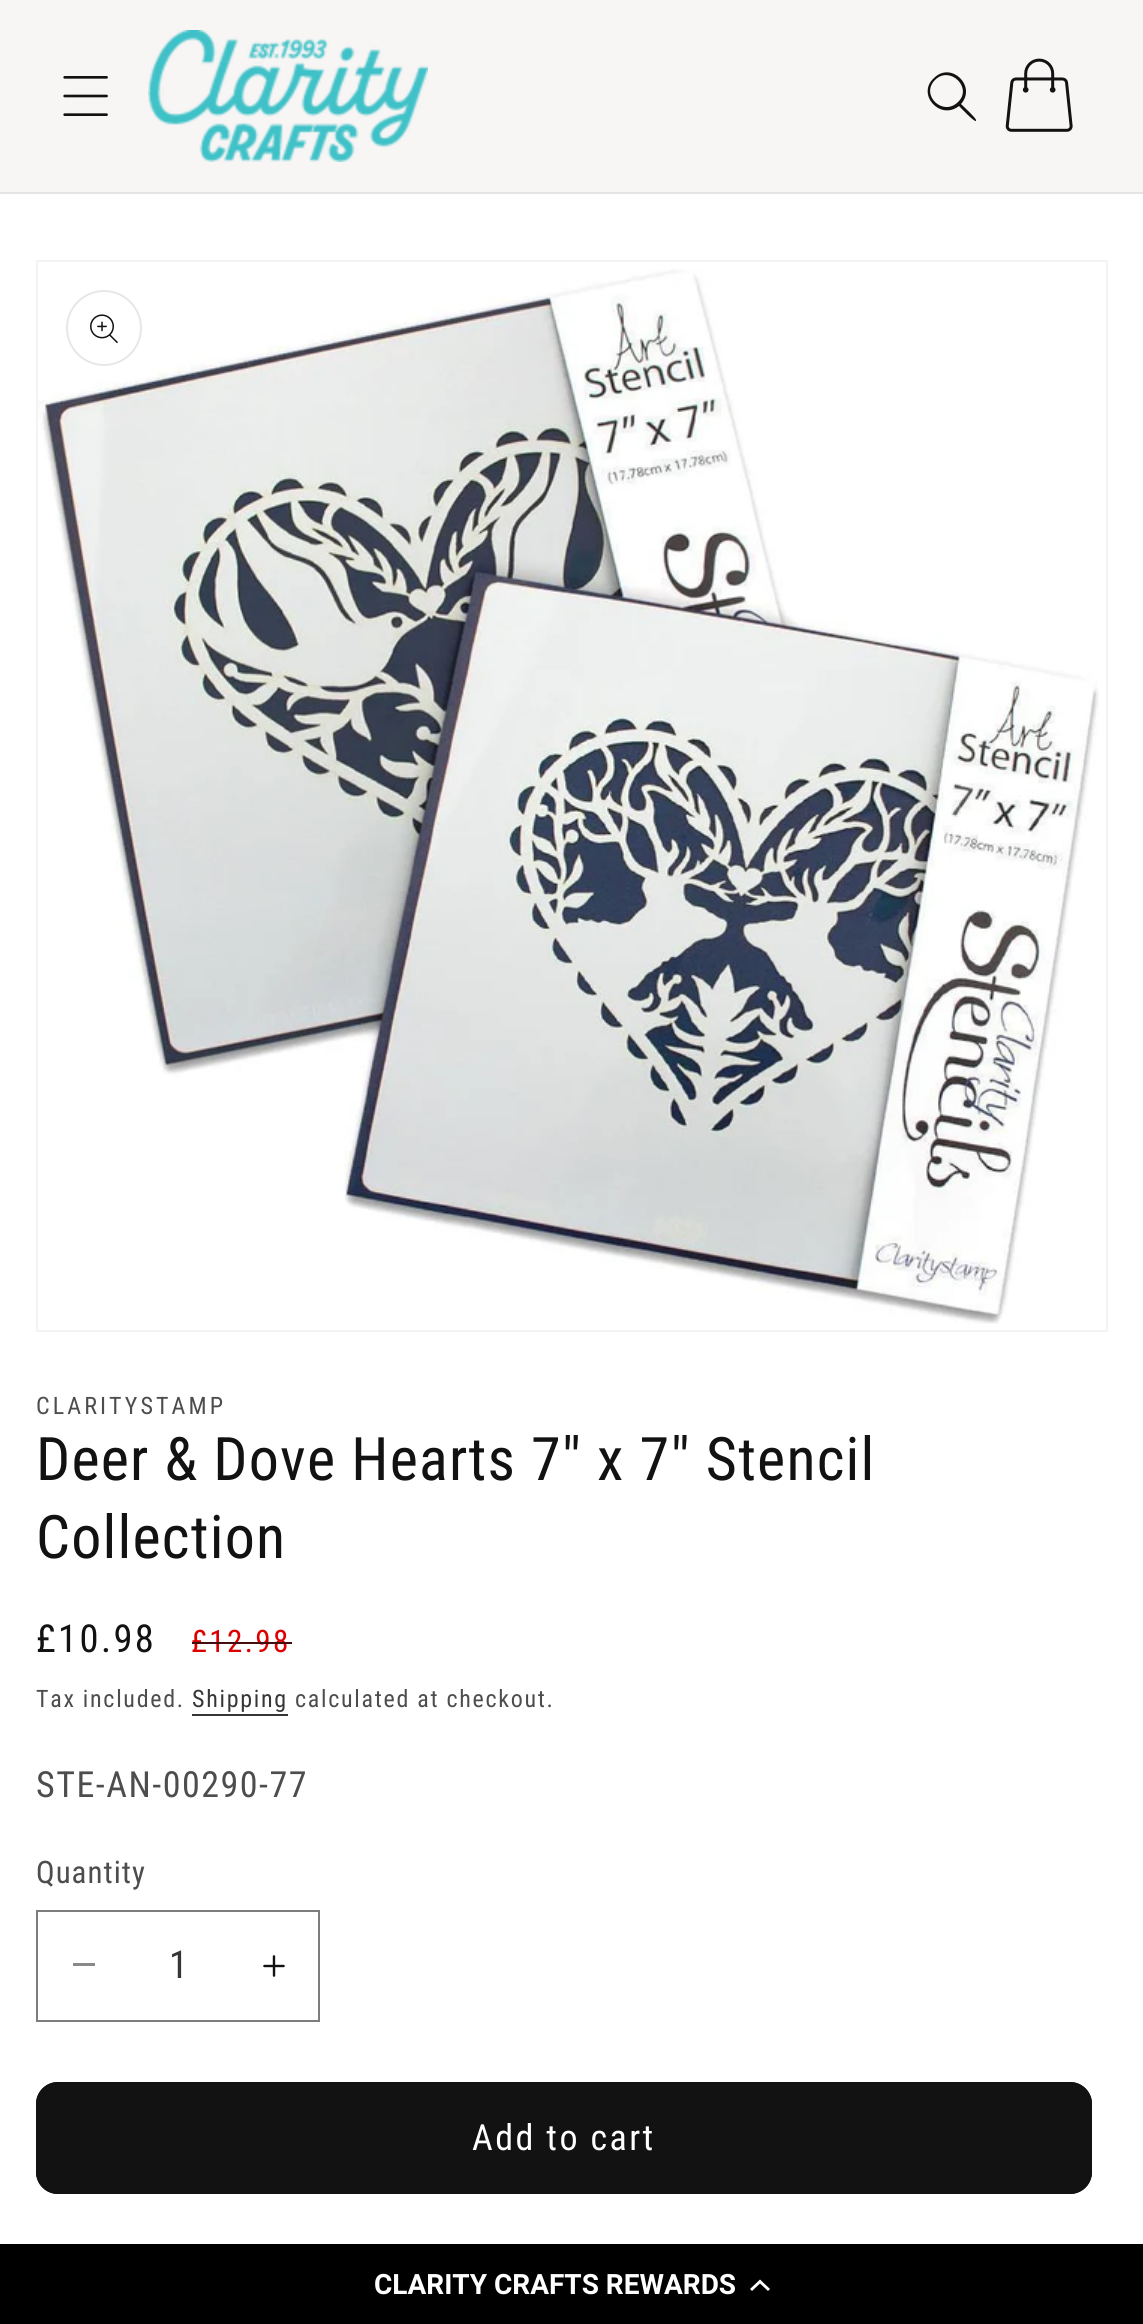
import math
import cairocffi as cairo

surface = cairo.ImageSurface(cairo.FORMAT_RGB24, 1143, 2324)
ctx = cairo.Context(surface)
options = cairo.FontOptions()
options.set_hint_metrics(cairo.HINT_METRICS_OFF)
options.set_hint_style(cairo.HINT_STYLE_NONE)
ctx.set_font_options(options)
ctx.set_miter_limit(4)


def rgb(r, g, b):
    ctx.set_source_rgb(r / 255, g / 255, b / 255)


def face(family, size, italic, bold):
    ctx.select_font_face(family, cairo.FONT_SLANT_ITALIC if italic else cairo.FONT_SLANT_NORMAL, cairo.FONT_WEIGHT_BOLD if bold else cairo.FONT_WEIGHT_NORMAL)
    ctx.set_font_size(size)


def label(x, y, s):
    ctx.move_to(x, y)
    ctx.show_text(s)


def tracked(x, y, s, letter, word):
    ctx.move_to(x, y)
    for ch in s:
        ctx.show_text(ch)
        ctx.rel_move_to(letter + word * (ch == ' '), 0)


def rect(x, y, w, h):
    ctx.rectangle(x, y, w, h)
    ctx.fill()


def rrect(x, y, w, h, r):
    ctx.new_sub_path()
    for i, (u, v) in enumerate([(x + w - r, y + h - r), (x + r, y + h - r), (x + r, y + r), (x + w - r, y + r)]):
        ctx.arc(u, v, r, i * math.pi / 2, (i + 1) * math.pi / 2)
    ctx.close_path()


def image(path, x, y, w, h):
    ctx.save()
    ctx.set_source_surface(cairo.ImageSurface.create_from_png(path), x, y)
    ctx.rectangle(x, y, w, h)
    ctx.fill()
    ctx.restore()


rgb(255, 255, 255)
ctx.paint()
rgb(248, 245, 245)
rect(0, 0, 1143, 192)
rgb(230, 227, 227)
rect(0, 192, 1143, 2)
image('image0.png', 63, 76, 45, 40)
image('image1.png', 148, 30, 280, 132)
rgb(18, 18, 18)
ctx.set_fill_rule(cairo.FILL_RULE_EVEN_ODD)
ctx.new_path()
ctx.move_to(958, 102)
ctx.curve_to(943, 117, 920, 95, 935, 80)
ctx.curve_to(950, 65, 973, 88, 958, 102)
ctx.close_path()
ctx.move_to(959, 106)
ctx.curve_to(940, 121, 916, 94, 934, 78)
ctx.curve_to(951, 61, 977, 86, 961, 104)
ctx.curve_to(963, 106, 976, 118, 976, 120)
ctx.line_to(976, 121)
ctx.curve_to(974, 122, 961, 108, 959, 106)
ctx.close_path()
ctx.fill()
image('image2.png', 1005, 58, 68, 74)
ctx.rectangle(37, 261, 1070, 1070)
rgb(243, 243, 243)
ctx.stroke()
image('image3.png', 38, 269, 1061, 1055)
ctx.arc(104, 328, 37, 0, 2 * math.pi)
rgb(231, 231, 231)
ctx.stroke()
image('image4.png', 90, 314, 28, 29)
face('Roboto Condensed', 24, 0, 0)
rgb(77, 77, 77)
tracked(36, 1414, 'CLARITYSTAMP', 3.1, 0)
face('Roboto Condensed', 60, 0, 0)
rgb(18, 18, 18)
tracked(36, 1480, 'Deer & Dove Hearts 7" x 7" Stencil', 1.2, 0)
tracked(36, 1558, 'Collection', 1.2, 0)
face('Roboto Condensed', 38.5, 0, 0)
tracked(36, 1652, '£10.98', 2.4, 0)
face('Roboto Condensed', 31, 0, 0)
rgb(221, 0, 0)
tracked(191, 1652, '£12.98', 2.4, 0)
rgb(69, 14, 14)
rect(192, 1642, 100, 2)
face('Roboto Condensed', 24, 0, 0)
rgb(77, 77, 77)
tracked(36, 1707, 'Tax included.', 1.7, 0)
rgb(54, 54, 54)
tracked(192, 1707, 'Shipping', 1.7, 0)
rect(192, 1714, 96, 2)
rgb(77, 77, 77)
tracked(295, 1707, 'calculated at checkout.', 1.7, 0)
face('Roboto Condensed', 36, 0, 0)
tracked(36, 1797, 'STE-AN-00290-77', 1.5, 0)
face('Roboto Condensed', 31, 0, 0)
tracked(36, 1883, 'Quantity', 1, 0)
rgb(137, 137, 137)
rect(73, 1963, 22, 3)
image('image5.png', 263, 1955, 22, 22)
ctx.rectangle(37, 1911, 282, 110)
rgb(125, 125, 125)
ctx.stroke()
face('Roboto Condensed', 38.5, 0, 0)
rgb(54, 54, 54)
label(169, 1978, '1')
rgb(18, 18, 18)
rrect(36, 2082, 1056, 112, 22)
ctx.fill()
rrect(37, 2083, 1054, 110, 21)
ctx.stroke()
face('Roboto Condensed', 36, 0, 0)
rgb(255, 255, 255)
tracked(472, 2150, 'Add to cart', 2.4, 0)
rgb(0, 0, 0)
rect(0, 2244, 1143, 80)
face('Roboto', 28, 0, 1)
rgb(255, 255, 255)
label(374, 2294, 'CLARITY CRAFTS REWARDS')
ctx.set_fill_rule(cairo.FILL_RULE_WINDING)
ctx.new_path()
ctx.move_to(760, 2283.5)
ctx.line_to(752, 2291)
ctx.line_to(750, 2289)
ctx.line_to(760, 2279.5)
ctx.line_to(770, 2289)
ctx.line_to(768, 2291)
ctx.close_path()
ctx.fill()
surface.write_to_png('render.png')
